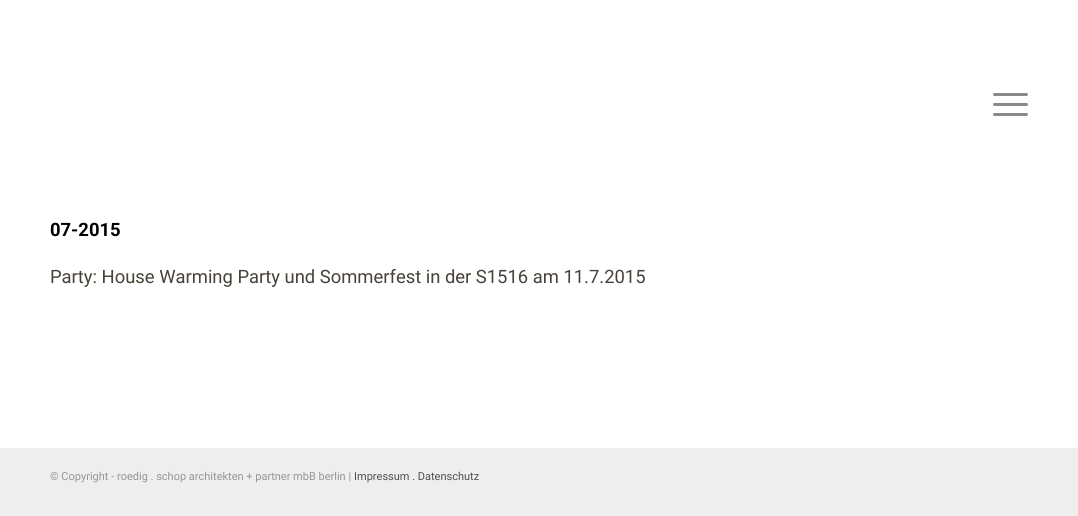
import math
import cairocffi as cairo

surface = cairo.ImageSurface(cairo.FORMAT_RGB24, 1078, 516)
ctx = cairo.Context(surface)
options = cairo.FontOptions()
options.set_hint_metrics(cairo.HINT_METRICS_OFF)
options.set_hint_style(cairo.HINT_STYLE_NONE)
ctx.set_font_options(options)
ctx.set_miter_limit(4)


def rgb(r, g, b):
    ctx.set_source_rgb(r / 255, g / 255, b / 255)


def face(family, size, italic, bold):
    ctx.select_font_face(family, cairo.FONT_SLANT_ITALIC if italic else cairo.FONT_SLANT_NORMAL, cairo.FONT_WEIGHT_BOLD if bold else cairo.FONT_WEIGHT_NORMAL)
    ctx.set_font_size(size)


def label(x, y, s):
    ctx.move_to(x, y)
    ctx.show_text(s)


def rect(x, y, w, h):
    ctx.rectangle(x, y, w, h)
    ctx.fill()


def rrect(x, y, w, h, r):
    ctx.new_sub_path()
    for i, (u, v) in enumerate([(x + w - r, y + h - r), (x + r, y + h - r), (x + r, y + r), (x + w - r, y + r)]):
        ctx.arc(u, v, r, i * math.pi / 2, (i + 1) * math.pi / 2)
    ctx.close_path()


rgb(238, 238, 238)
ctx.paint()
rgb(255, 255, 255)
rect(0, 0, 1078, 448)
rgb(138, 138, 138)
rrect(993, 103, 35, 3, 1.5)
ctx.fill()
rrect(993, 93, 35, 3, 1.5)
ctx.fill()
rrect(993, 113, 35, 3, 1.5)
ctx.fill()
face('Roboto', 18.4, 0, 1)
rgb(0, 0, 0)
label(50, 236, '07-2015')
face('Roboto', 18.4, 0, 0)
rgb(71, 66, 57)
label(50, 283, 'Party: House Warming Party und Sommerfest in der S1516 am 11.7.2015')
face('Roboto', 11, 0, 0)
rgb(150, 150, 150)
label(50, 480, '© Copyright - roedig . schop architekten + partner mbB berlin |')
rgb(79, 79, 79)
label(354, 480, 'Impressum . Datenschutz')
surface.write_to_png('render.png')
